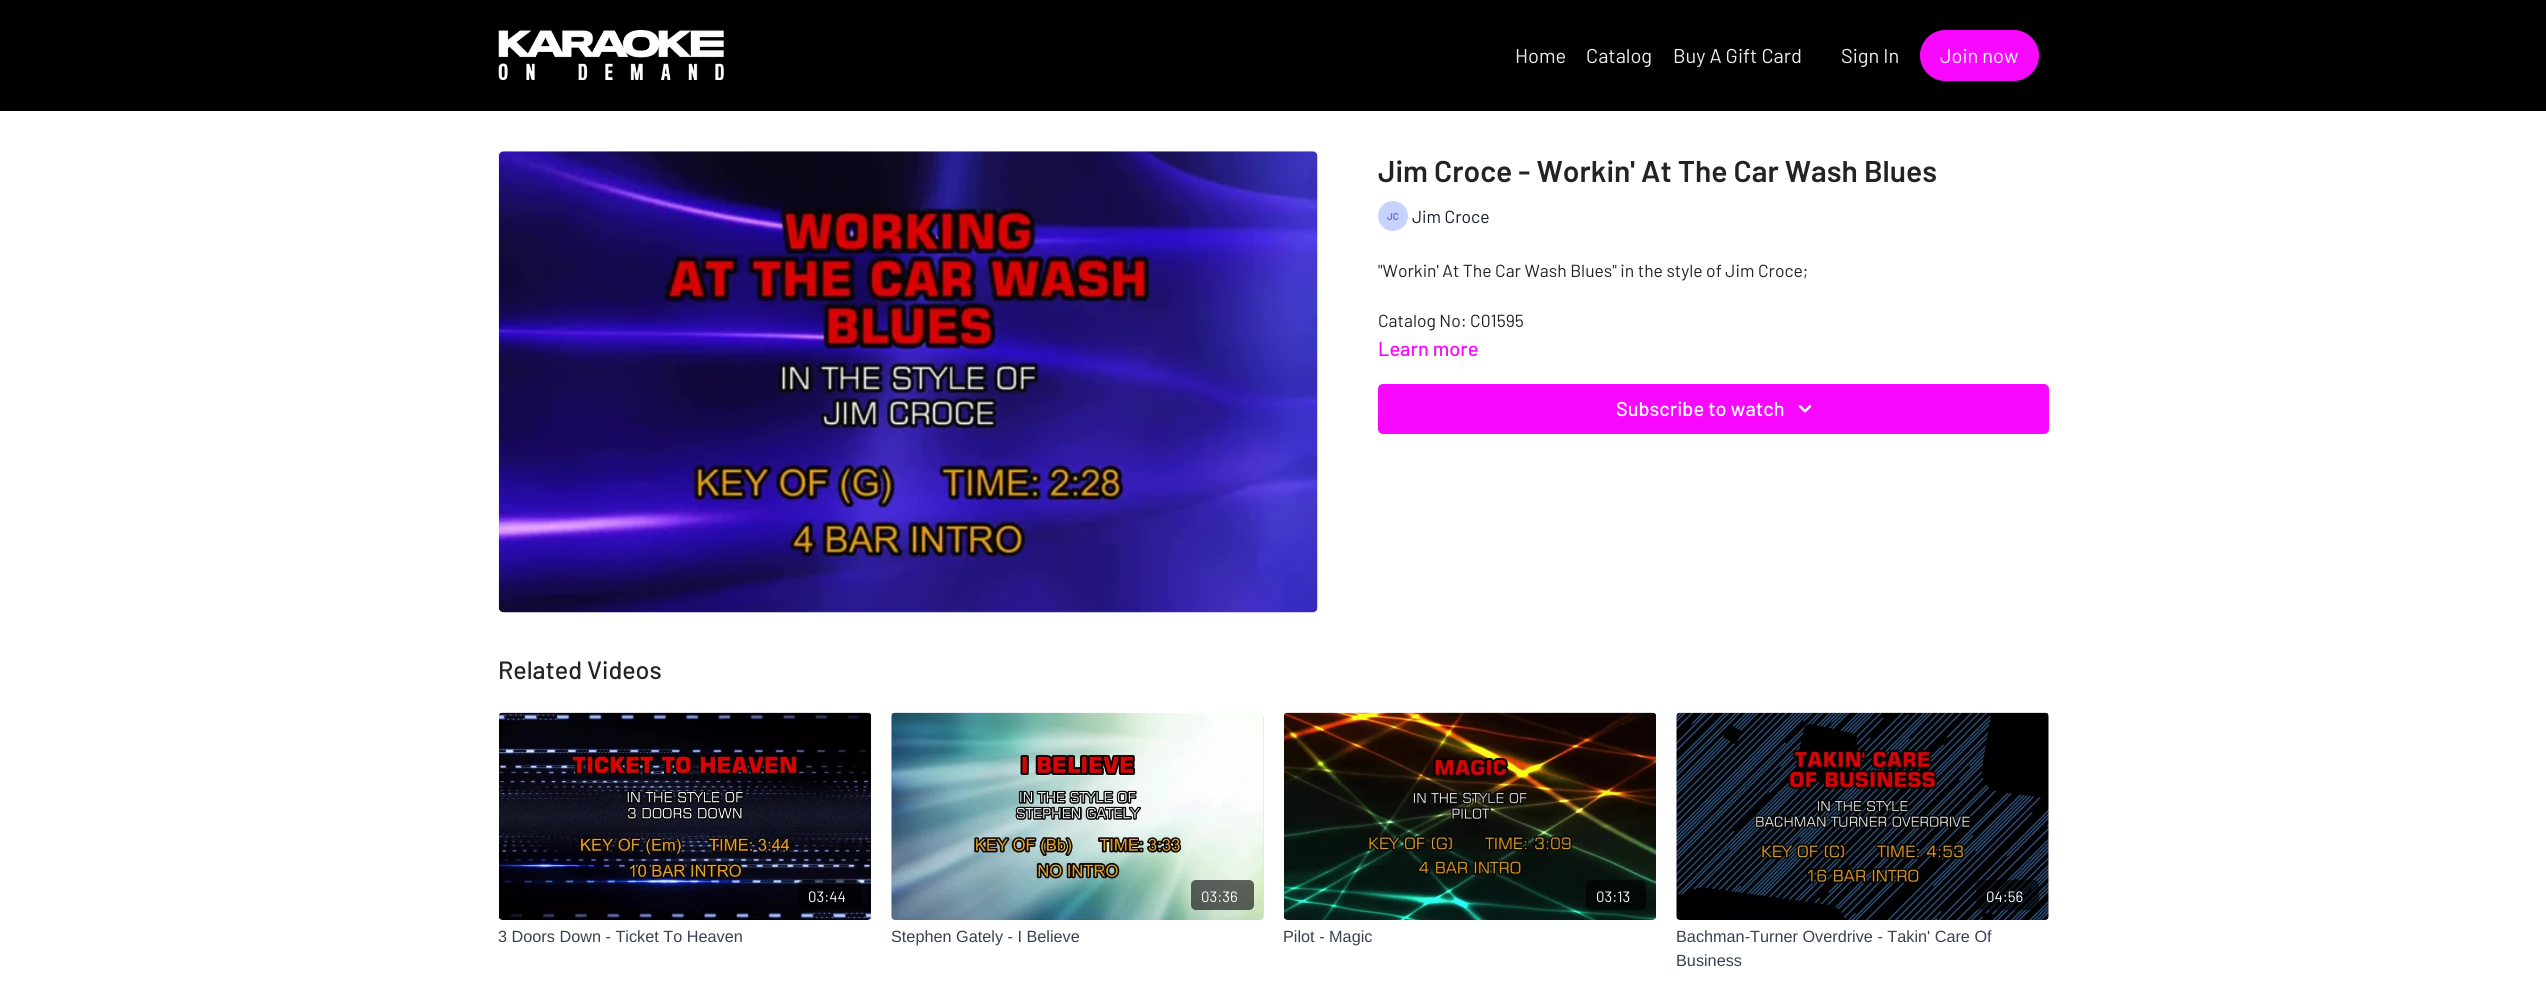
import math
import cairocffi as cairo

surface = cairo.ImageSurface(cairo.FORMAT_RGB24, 2546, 995)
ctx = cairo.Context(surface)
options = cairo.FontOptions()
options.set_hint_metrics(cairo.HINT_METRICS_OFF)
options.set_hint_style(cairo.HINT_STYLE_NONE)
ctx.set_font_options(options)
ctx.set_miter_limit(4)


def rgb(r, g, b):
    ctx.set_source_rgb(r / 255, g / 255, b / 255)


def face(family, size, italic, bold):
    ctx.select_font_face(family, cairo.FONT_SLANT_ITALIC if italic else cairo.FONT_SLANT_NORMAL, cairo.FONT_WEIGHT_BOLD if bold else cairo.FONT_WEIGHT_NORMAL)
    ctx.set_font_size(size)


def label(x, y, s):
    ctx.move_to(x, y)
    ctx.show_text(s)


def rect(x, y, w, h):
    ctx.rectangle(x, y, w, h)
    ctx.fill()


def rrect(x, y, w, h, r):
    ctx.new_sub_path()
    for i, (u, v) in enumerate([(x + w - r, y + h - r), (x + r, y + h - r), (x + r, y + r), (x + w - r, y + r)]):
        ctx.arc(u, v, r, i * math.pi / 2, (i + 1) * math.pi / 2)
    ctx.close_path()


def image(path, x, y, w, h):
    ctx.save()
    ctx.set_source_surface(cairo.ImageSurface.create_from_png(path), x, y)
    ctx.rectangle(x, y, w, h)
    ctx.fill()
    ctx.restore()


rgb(255, 255, 255)
ctx.paint()
rgb(0, 0, 0)
rect(0, 0, 2546, 111)
image('image0.png', 498, 30, 226, 50)
face('Barlow', 20, 0, 0)
rgb(238, 238, 238)
label(1515, 63, 'Home')
label(1586, 63, 'Catalog')
label(1673, 63, 'Buy A Gift Card')
label(1841, 63, 'Sign In')
rgb(248, 8, 255)
rrect(1920.5, 30.5, 118, 50, 25)
ctx.fill_preserve()
ctx.set_line_width(1)
ctx.stroke()
rgb(255, 255, 255)
label(1940, 63, 'Join now')
image('image1.png', 498, 151, 820, 462)
face('Barlow SemiBold', 30, 0, 0)
rgb(35, 35, 35)
label(1378, 182, 'Jim Croce - Workin\' At The Car Wash Blues')
rgb(199, 210, 254)
ctx.new_path()
ctx.arc(1393, 216, 15, 0, 2 * math.pi)
ctx.fill()
face('Barlow SemiBold', 10, 0, 0)
rgb(99, 102, 241)
label(1387, 220, 'JC')
face('Barlow', 17.5, 0, 0)
rgb(17, 24, 39)
label(1412, 223, 'Jim Croce')
rgb(35, 35, 35)
label(1378, 277, '"Workin\' At The Car Wash Blues" in the style of Jim Croce;')
label(1378, 327, 'Catalog No: C01595')
face('Barlow Medium', 20, 0, 0)
rgb(248, 8, 255)
label(1378, 356, 'Learn more')
rrect(1378, 384, 671, 50, 5)
ctx.fill()
rgb(255, 255, 255)
label(1616, 416, 'Subscribe to watch')
image('image2.png', 1798, 405, 14, 8)
face('Barlow Medium', 25, 0, 0)
rgb(35, 35, 35)
label(498, 679, 'Related Videos')
image('image3.png', 499, 712, 372, 208)
ctx.set_source_rgba(0, 0, 0, 0.6)
rrect(798, 880, 63, 30, 5)
ctx.fill()
face('Barlow', 15, 0, 0)
rgb(255, 255, 255)
label(808, 902, '03:44')
face('Liberation Sans', 16.25, 0, 0)
rgb(55, 65, 81)
label(498, 942, '3 Doors Down - Ticket To Heaven')
gradient = cairo.LinearGradient(891, 816, 1264, 816)
gradient.add_color_stop_rgba(0.08, 0.871, 0.871, 0.871, 1)
gradient.add_color_stop_rgba(0.18, 0.882, 0.882, 0.882, 1)
gradient.add_color_stop_rgba(0.33, 0.89, 0.89, 0.89, 1)
ctx.set_source(gradient)
rrect(891, 713, 373, 207, 5)
ctx.fill()
image('image4.png', 891, 712, 373, 208)
ctx.set_source_rgba(0, 0, 0, 0.6)
rrect(1191, 880, 63, 30, 5)
ctx.fill()
face('Barlow', 15, 0, 0)
rgb(255, 255, 255)
label(1201, 902, '03:36')
face('Liberation Sans', 16.25, 0, 0)
rgb(55, 65, 81)
label(891, 942, 'Stephen Gately - I Believe')
image('image5.png', 1284, 712, 372, 208)
ctx.set_source_rgba(0, 0, 0, 0.6)
rrect(1586, 880, 60, 30, 5)
ctx.fill()
face('Barlow', 15, 0, 0)
rgb(255, 255, 255)
label(1596, 902, '03:13')
face('Liberation Sans', 16.25, 0, 0)
rgb(55, 65, 81)
label(1283, 942, 'Pilot - Magic')
gradient = cairo.LinearGradient(1676, 816, 2049, 816)
gradient.add_color_stop_rgba(0.08, 0.871, 0.871, 0.871, 1)
gradient.add_color_stop_rgba(0.18, 0.882, 0.882, 0.882, 1)
gradient.add_color_stop_rgba(0.33, 0.89, 0.89, 0.89, 1)
ctx.set_source(gradient)
rrect(1676, 713, 373, 207, 5)
ctx.fill()
image('image6.png', 1676, 712, 373, 208)
ctx.set_source_rgba(0, 0, 0, 0.6)
rrect(1976, 880, 63, 30, 5)
ctx.fill()
face('Barlow', 15, 0, 0)
rgb(255, 255, 255)
label(1986, 902, '04:56')
face('Liberation Sans', 16.25, 0, 0)
rgb(55, 65, 81)
label(1676, 942, 'Bachman-Turner Overdrive - Takin\' Care Of')
label(1676, 966, 'Business')
surface.write_to_png('render.png')
